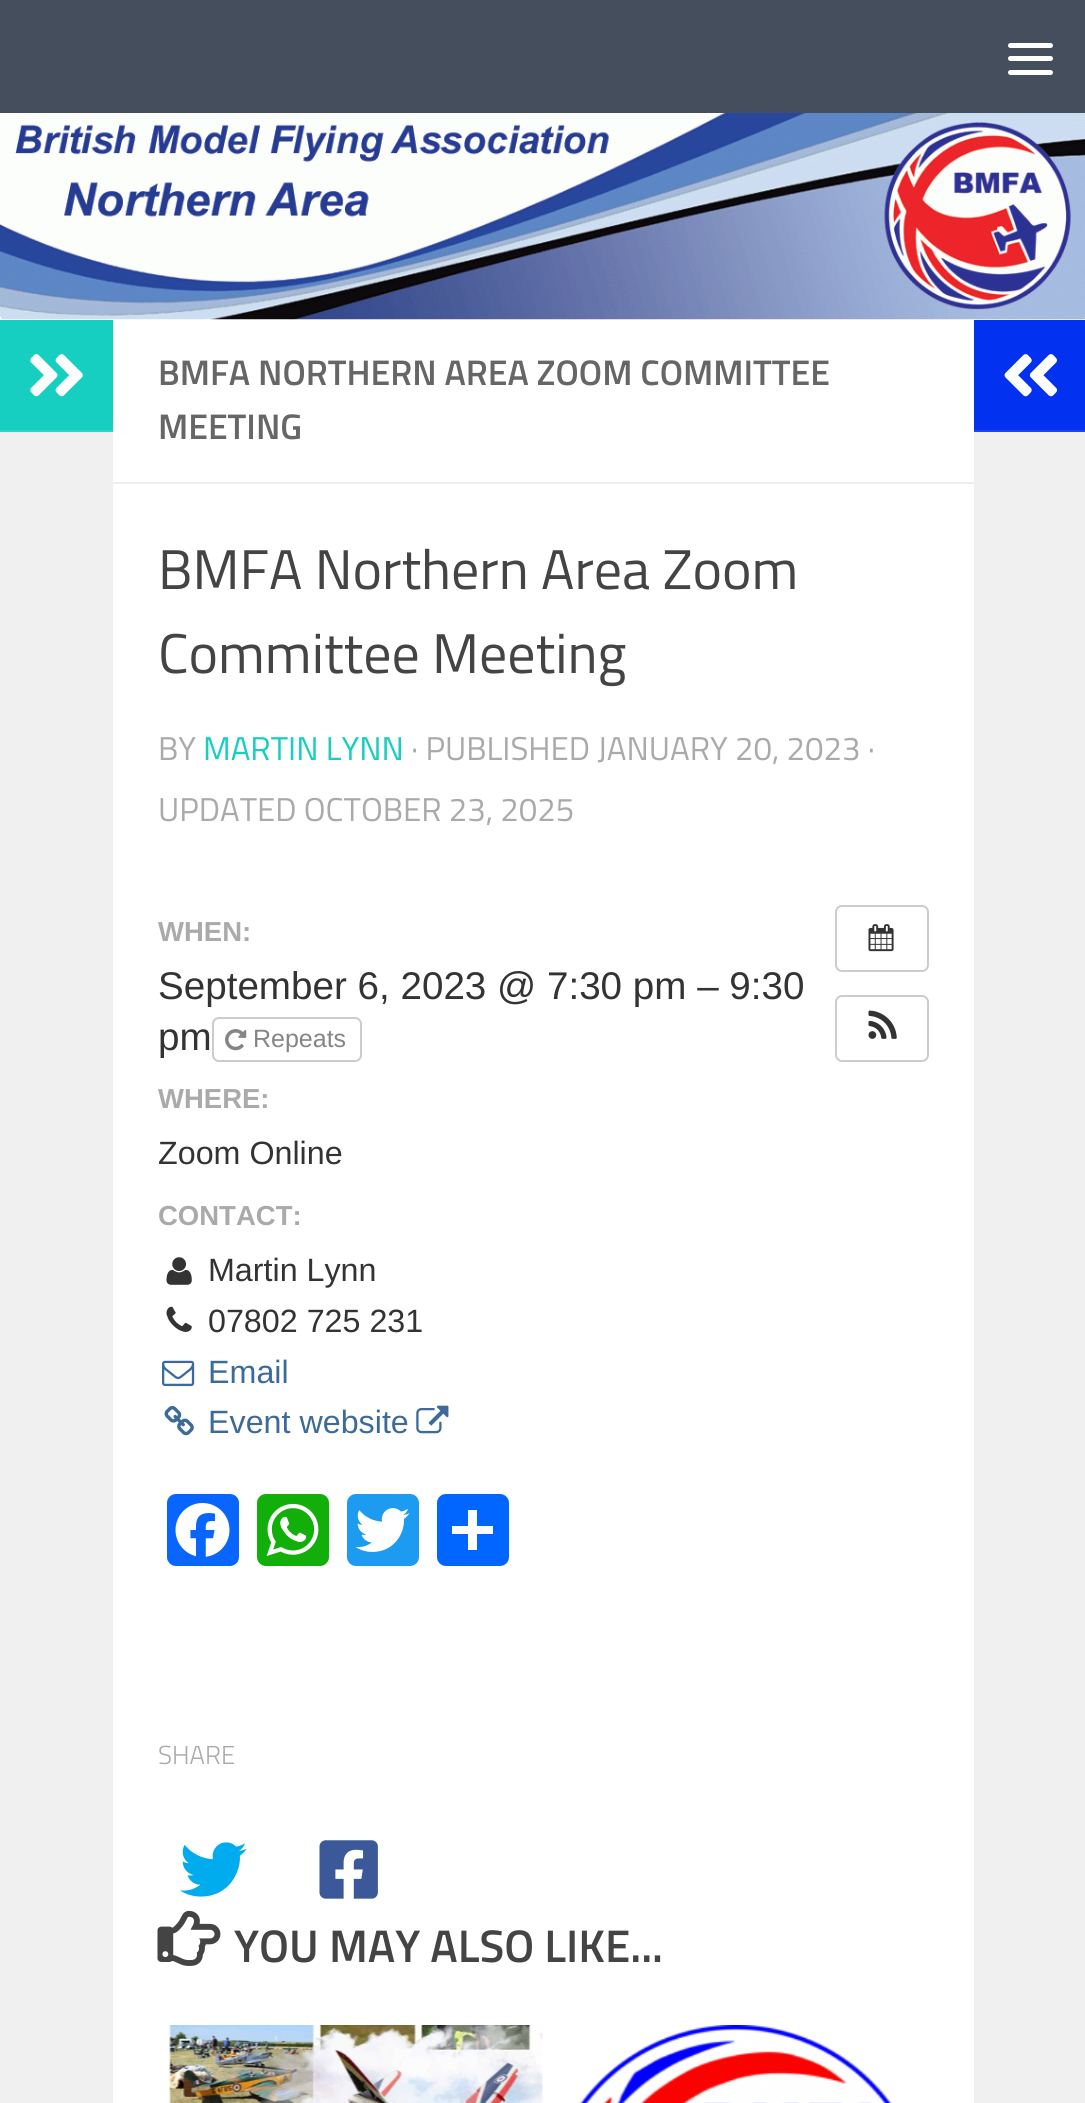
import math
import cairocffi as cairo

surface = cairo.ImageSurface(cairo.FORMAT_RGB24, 1085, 2103)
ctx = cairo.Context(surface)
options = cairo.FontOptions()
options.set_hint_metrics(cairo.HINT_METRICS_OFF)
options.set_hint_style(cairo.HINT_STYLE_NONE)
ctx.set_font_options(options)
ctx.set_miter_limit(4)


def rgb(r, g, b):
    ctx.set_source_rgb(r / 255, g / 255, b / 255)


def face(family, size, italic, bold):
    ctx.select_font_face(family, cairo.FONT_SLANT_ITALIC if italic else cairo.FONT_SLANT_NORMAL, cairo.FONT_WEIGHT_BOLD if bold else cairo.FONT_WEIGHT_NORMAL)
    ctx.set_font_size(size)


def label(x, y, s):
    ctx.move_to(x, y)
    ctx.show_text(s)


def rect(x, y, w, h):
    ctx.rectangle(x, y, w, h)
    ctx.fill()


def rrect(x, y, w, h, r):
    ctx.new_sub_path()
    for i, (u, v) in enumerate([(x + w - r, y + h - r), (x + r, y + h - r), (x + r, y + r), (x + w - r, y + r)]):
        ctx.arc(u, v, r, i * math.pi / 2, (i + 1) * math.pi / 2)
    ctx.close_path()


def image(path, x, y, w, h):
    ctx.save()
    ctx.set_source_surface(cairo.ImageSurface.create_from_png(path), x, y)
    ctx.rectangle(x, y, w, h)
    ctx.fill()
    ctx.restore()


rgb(255, 255, 255)
ctx.paint()
rgb(69, 78, 92)
rect(0, 0, 1085, 113)
rgb(255, 255, 255)
rrect(1008, 43, 45, 5, 2.5)
ctx.fill()
rrect(1008, 56, 45, 5, 2.5)
ctx.fill()
rrect(1008, 70, 45, 5, 2.5)
ctx.fill()
image('image0.png', 0, 113, 1085, 207)
rgb(240, 240, 240)
rect(0, 432, 113, 1671)
rgb(22, 207, 193)
rect(0, 320, 113, 110)
rgb(45, 212, 199)
rect(0, 430, 113, 2)
image('image1.png', 30, 354, 53, 43)
rgb(238, 238, 238)
rect(113, 482, 861, 2)
face('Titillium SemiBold', 35.6, 0, 0)
rgb(102, 102, 102)
label(158, 385, 'BMFA NORTHERN AREA ZOOM COMMITTEE')
label(158, 439, 'MEETING')
face('Titillium', 56, 0, 0)
rgb(68, 68, 68)
label(158, 589, 'BMFA Northern Area Zoom')
label(158, 673, 'Committee Meeting')
face('Titillium', 33, 0, 0)
rgb(170, 170, 170)
label(158, 760, 'BY')
rgb(22, 207, 193)
label(203, 760, 'MARTIN LYNN')
rgb(170, 170, 170)
label(411, 760, '· PUBLISHED JANUARY 20, 2023 ·')
label(158, 821, 'UPDATED OCTOBER 23, 2025')
face('Liberation Sans', 27.5, 0, 1)
label(158, 941, 'WHEN:')
face('Liberation Sans', 38.6, 0, 0)
rgb(51, 51, 51)
label(158, 999, 'September 6, 2023 @ 7:30 pm – 9:30')
label(158, 1050, 'pm')
rrect(213, 1018, 148, 43, 6)
rgb(204, 204, 204)
ctx.stroke()
image('image2.png', 225, 1029, 22, 22)
face('Liberation Sans', 25, 0, 0)
rgb(133, 133, 133)
label(253, 1047, 'Repeats')
face('Liberation Sans', 27.5, 0, 1)
rgb(170, 170, 170)
label(158, 1108, 'WHERE:')
face('Liberation Sans', 32.25, 0, 0)
rgb(51, 51, 51)
label(158, 1164, 'Zoom Online')
face('Liberation Sans', 27.5, 0, 1)
rgb(170, 170, 170)
label(158, 1225, 'CONTACT:')
image('image3.png', 166, 1257, 26, 28)
face('Liberation Sans', 32.25, 0, 0)
rgb(51, 51, 51)
label(208, 1281, 'Martin Lynn')
image('image4.png', 166, 1306, 26, 26)
label(208, 1332, '07802 725 231')
image('image5.png', 162, 1360, 33, 27)
rgb(61, 107, 153)
label(208, 1383, 'Email')
image('image6.png', 164, 1406, 30, 30)
label(208, 1433, 'Event website')
image('image7.png', 416, 1405, 33, 29)
rrect(836, 906, 92, 65, 6)
rgb(204, 204, 204)
ctx.stroke()
image('image8.png', 868, 924, 26, 28)
rrect(836, 996, 92, 65, 6)
ctx.stroke()
image('image9.png', 868, 1010, 29, 29)
rgb(8, 102, 255)
rrect(167, 1494, 72, 72, 9)
ctx.fill()
image('image10.png', 175, 1503, 55, 54)
rgb(18, 175, 10)
rrect(257, 1494, 72, 72, 9)
ctx.fill()
image('image11.png', 266, 1503, 53, 53)
rgb(29, 155, 240)
rrect(347, 1494, 72, 72, 9)
ctx.fill()
image('image12.png', 355, 1508, 55, 44)
rgb(1, 102, 255)
rrect(437, 1494, 72, 72, 9)
ctx.fill()
rgb(255, 255, 255)
rect(468, 1510, 9, 40)
rect(452, 1526, 41, 8)
face('Titillium Light', 26, 0, 0)
rgb(170, 170, 170)
label(158, 1764, 'SHARE')
image('image13.png', 180, 1842, 67, 55)
image('image14.png', 319, 1840, 59, 59)
image('image15.png', 157, 1910, 64, 56)
face('Titillium SemiBold', 45.75, 0, 0)
rgb(68, 68, 68)
label(234, 1962, 'YOU MAY ALSO LIKE...')
image('image16.png', 168, 2025, 375, 78)
image('image17.png', 579, 2025, 313, 78)
rgb(2, 49, 239)
rect(974, 320, 111, 110)
rgb(27, 70, 241)
rect(974, 430, 111, 2)
image('image18.png', 1004, 354, 53, 43)
rgb(240, 240, 240)
rect(974, 432, 111, 1671)
surface.write_to_png('render.png')
